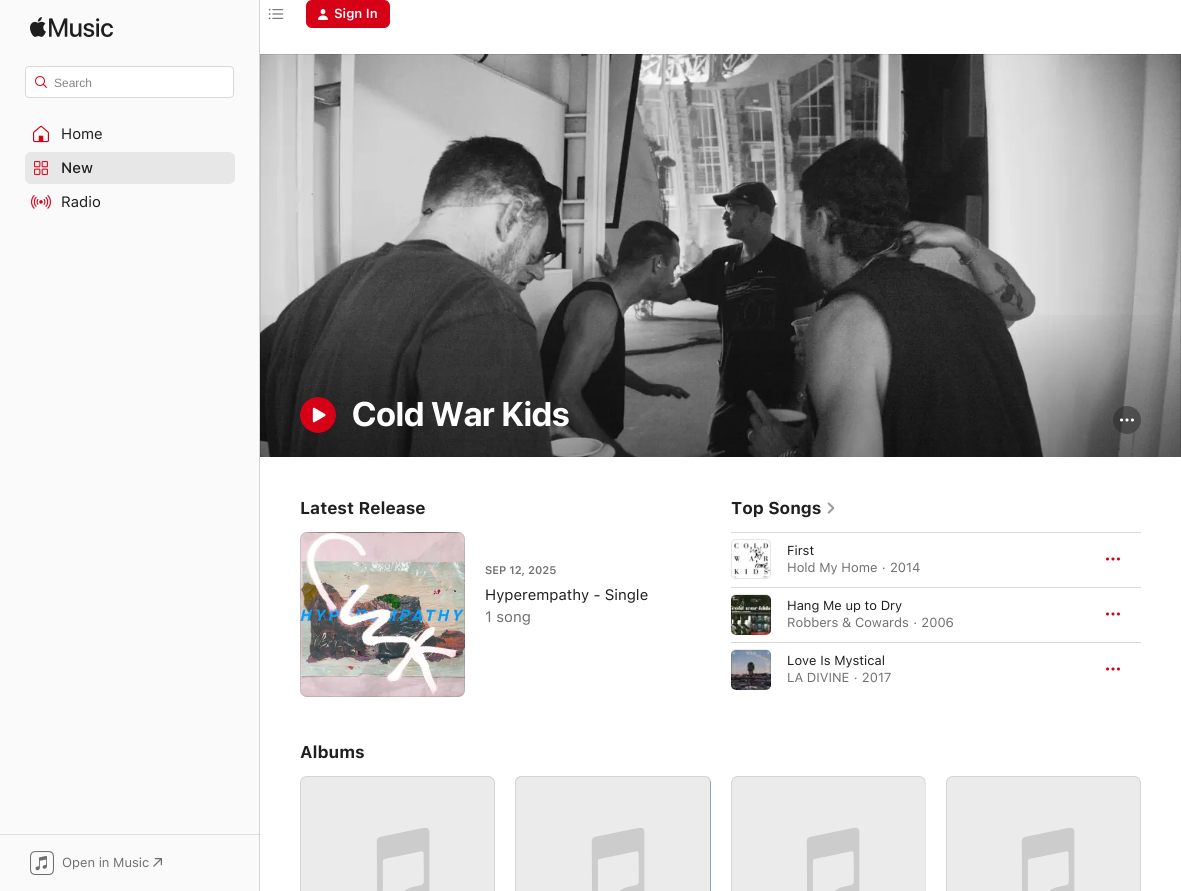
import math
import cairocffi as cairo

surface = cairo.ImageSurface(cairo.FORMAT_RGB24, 1181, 891)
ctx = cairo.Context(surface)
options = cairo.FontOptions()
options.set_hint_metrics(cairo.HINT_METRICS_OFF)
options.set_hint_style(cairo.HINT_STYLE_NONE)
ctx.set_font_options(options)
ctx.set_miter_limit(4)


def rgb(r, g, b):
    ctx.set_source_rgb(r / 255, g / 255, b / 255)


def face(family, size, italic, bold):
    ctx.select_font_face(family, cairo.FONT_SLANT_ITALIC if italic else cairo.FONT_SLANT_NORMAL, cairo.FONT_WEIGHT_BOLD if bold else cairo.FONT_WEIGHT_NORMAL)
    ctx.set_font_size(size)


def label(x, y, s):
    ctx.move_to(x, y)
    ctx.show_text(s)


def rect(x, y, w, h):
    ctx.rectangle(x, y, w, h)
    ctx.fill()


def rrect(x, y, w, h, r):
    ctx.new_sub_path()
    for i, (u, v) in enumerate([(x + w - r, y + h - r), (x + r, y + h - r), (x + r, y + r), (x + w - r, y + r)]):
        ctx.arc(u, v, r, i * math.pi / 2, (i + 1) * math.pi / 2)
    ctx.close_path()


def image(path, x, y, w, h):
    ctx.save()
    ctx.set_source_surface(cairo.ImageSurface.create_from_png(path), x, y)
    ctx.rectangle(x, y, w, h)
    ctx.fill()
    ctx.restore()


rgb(255, 255, 255)
ctx.paint()
image('image0.png', 268, 8, 16, 12)
rgb(214, 0, 23)
rrect(306, 0, 84, 28, 6)
ctx.fill()
image('image1.png', 318, 9, 10, 11)
face('SF SemiBold', 13, 0, 0)
rgb(255, 255, 255)
label(334, 18, 'Sign In')
rgb(250, 250, 250)
rect(0, 0, 259, 891)
rgb(225, 225, 225)
rect(0, 834, 260, 1)
rgb(213, 213, 213)
rect(259, 0, 1, 891)
rgb(192, 192, 192)
rect(259, 834, 1, 1)
image('image2.png', 30, 17, 83, 20)
rgb(255, 255, 255)
rrect(25.5, 66.5, 208, 31, 3.5)
ctx.fill_preserve()
rgb(217, 217, 217)
ctx.set_line_width(1)
ctx.stroke()
image('image3.png', 35, 76, 12, 12)
face('Liberation Sans', 12, 0, 0)
rgb(133, 133, 133)
label(54, 87, 'Search')
image('image4.png', 33, 125, 16, 18)
face('SF', 15, 0, 0)
rgb(31, 31, 31)
label(61, 139, 'Home')
rgb(231, 231, 232)
rrect(25, 152, 210, 32, 6)
ctx.fill()
image('image5.png', 34, 161, 14, 14)
face('SF Medium', 15, 0, 0)
rgb(31, 31, 31)
label(61, 173, 'New')
image('image6.png', 31, 195, 20, 14)
face('SF', 15, 0, 0)
label(61, 207, 'Radio')
image('image7.png', 30, 851, 24, 24)
face('SF', 13, 0, 0)
rgb(112, 112, 112)
label(62, 867, 'Open in Music')
image('image8.png', 153, 858, 9, 9)
image('image9.png', 260, 54, 921, 403)
face('SF SemiBold', 11, 0, 0)
label(485, 574, 'SEP 12, 2025')
image('image13.png', 827, 502, 8, 12)
ctx.save()
ctx.rectangle(260, 54, 921, 403)
ctx.clip()
ctx.rectangle(260.5, 54.5, 920, 517)
ctx.set_source_rgba(0, 0, 0, 0.1)
ctx.stroke()
ctx.restore()
gradient = cairo.LinearGradient(721, 457, 721, 307)
gradient.add_color_stop_rgba(0, 0, 0, 0, 0.36)
gradient.add_color_stop_rgba(0.36, 0, 0, 0, 0.25)
gradient.add_color_stop_rgba(1, 0, 0, 0, 0)
ctx.set_source(gradient)
rect(260, 315, 921, 142)
image('image10.png', 300, 397, 36, 36)
face('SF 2', 34, 0, 1)
rgb(255, 255, 255)
label(352, 426, 'Cold War Kids')
ctx.set_source_rgba(0.157, 0.157, 0.157, 0.5)
ctx.new_path()
ctx.arc(1127, 420, 14, 0, 2 * math.pi)
ctx.fill()
image('image11.png', 1120, 418, 14, 4)
face('SF', 17, 0, 1)
rgb(31, 31, 31)
label(300, 514, 'Latest Release')
image('image12.png', 300, 532, 165, 165)
rrect(300.5, 532.5, 164, 164, 6.5)
ctx.set_source_rgba(0, 0, 0, 0.1)
ctx.stroke()
face('SF', 15, 0, 0)
rgb(31, 31, 31)
label(485, 600, 'Hyperempathy - Single')
rgb(112, 112, 112)
label(485, 622, '1 song')
face('SF', 17, 0, 1)
rgb(31, 31, 31)
label(731, 514, 'Top Songs')
rgb(217, 217, 217)
rect(731, 532, 410, 1)
image('image14.png', 734, 540, 37, 40)
rrect(731.5, 539.5, 39, 39, 4.5)
ctx.set_source_rgba(0, 0, 0, 0.1)
ctx.stroke()
face('SF', 13, 0, 0)
rgb(31, 31, 31)
label(787, 555, 'First')
rgb(112, 112, 112)
label(787, 572, 'Hold My Home · 2014')
image('image15.png', 1106, 557, 14, 4)
rgb(217, 217, 217)
rect(731, 587, 410, 1)
image('image16.png', 731, 595, 40, 40)
rrect(731.5, 594.5, 39, 39, 4.5)
ctx.set_source_rgba(0, 0, 0, 0.1)
ctx.stroke()
rgb(31, 31, 31)
label(787, 610, 'Hang Me up to Dry')
rgb(112, 112, 112)
label(787, 627, 'Robbers & Cowards · 2006')
image('image15.png', 1106, 612, 14, 4)
rgb(217, 217, 217)
rect(731, 642, 410, 1)
image('image17.png', 731, 650, 40, 40)
rrect(731.5, 649.5, 39, 39, 4.5)
ctx.set_source_rgba(0, 0, 0, 0.1)
ctx.stroke()
rgb(31, 31, 31)
label(787, 665, 'Love Is Mystical')
rgb(112, 112, 112)
label(787, 682, 'LA DIVINE · 2017')
image('image15.png', 1106, 667, 14, 4)
face('SF', 17, 0, 1)
rgb(31, 31, 31)
label(300, 758, 'Albums')
image('image18.png', 300, 776, 195, 115)
rrect(300.5, 776.5, 194, 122, 6.5)
ctx.set_source_rgba(0, 0, 0, 0.1)
ctx.stroke()
rgb(163, 179, 196)
ctx.new_path()
ctx.move_to(522, 776)
ctx.line_to(704, 776)
ctx.curve_to(708, 776, 711, 779, 711, 783)
ctx.line_to(711, 891)
ctx.line_to(515, 891)
ctx.line_to(515, 783)
ctx.curve_to(515, 779, 518, 776, 522, 776)
ctx.close_path()
ctx.fill()
ctx.save()
rrect(515, 776, 196, 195, 7)
ctx.clip()
rgb(235, 235, 235)
ctx.new_path()
ctx.move_to(522, 776)
ctx.line_to(710, 776)
ctx.line_to(710, 891)
ctx.line_to(515, 891)
ctx.line_to(515, 783)
ctx.curve_to(515, 779, 518, 776, 522, 776)
ctx.close_path()
ctx.fill()
ctx.restore()
image('image19.png', 515, 776, 192, 115)
rrect(515.5, 776.5, 195, 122, 6.5)
ctx.set_source_rgba(0, 0, 0, 0.1)
ctx.stroke()
image('image20.png', 731, 776, 194, 115)
rrect(731.5, 776.5, 194, 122, 6.5)
ctx.stroke()
image('image21.png', 946, 776, 195, 115)
rrect(946.5, 776.5, 194, 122, 6.5)
ctx.stroke()
surface.write_to_png('render.png')
